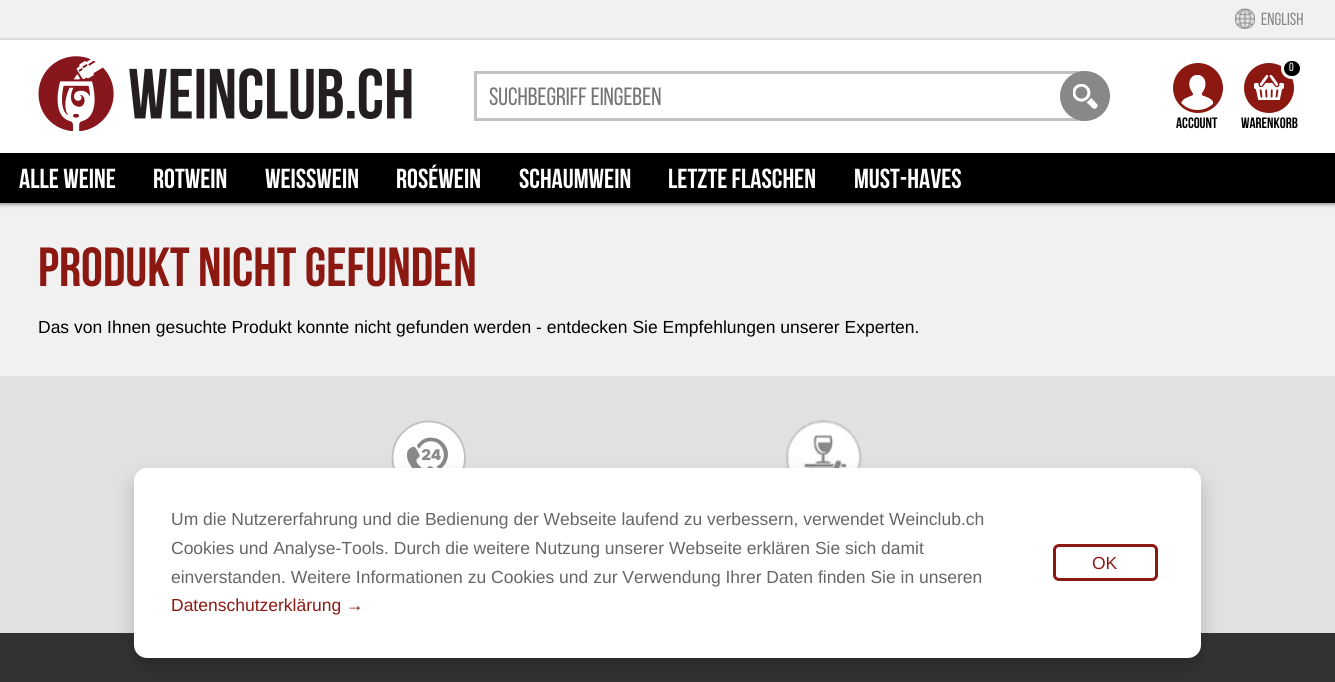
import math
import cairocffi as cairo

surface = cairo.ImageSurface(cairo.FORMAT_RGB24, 1335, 682)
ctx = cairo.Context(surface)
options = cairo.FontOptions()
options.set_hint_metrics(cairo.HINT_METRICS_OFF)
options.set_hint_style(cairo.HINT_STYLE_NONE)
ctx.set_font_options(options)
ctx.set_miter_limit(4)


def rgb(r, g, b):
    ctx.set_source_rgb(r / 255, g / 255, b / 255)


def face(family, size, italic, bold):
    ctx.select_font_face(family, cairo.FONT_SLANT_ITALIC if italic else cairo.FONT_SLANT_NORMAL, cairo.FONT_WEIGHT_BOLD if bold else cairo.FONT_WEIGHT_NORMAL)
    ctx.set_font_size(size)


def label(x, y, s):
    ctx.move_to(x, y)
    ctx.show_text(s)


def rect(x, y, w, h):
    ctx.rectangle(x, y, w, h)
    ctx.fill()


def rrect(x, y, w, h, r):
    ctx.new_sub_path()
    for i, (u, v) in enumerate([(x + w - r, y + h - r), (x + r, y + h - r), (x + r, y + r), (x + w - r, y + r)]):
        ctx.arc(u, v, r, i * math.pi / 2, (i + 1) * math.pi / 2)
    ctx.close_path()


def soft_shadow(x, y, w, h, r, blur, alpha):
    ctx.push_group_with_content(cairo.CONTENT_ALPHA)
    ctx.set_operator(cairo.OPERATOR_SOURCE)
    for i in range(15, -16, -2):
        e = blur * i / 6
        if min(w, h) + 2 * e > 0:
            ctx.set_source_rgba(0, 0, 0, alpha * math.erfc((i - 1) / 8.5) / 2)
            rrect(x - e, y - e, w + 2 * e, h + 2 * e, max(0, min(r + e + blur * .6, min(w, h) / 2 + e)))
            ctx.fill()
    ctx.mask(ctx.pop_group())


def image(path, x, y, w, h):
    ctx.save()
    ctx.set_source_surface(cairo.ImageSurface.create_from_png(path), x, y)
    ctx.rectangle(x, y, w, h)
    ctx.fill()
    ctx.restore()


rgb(241, 241, 241)
ctx.paint()
image('image0.png', 1235, 8, 20, 21)
face('Bebas Neue', 17.5, 0, 0)
rgb(136, 136, 136)
label(1261, 25, 'ENGLISH')
rgb(0, 0, 0)
soft_shadow(0, 41, 1335, 163, 0, 2, 0.5)
rgb(255, 255, 255)
rect(0, 40, 1335, 113)
image('image1.png', 38, 56, 374, 75)
ctx.rectangle(475.5, 72.5, 608, 47)
rgb(193, 193, 193)
ctx.set_line_width(3)
ctx.stroke()
face('Bebas Neue', 25, 0, 0)
rgb(117, 117, 117)
label(489, 105, 'SUCHBEGRIFF EINGEBEN')
rgb(136, 136, 136)
ctx.new_path()
ctx.arc(1085, 96, 25, 0, 2 * math.pi)
ctx.fill()
image('image2.png', 1073, 84, 25, 25)
rgb(140, 24, 18)
ctx.arc(1198, 88, 23.5, 0, 2 * math.pi)
ctx.fill_preserve()
ctx.stroke()
image('image3.png', 1181, 75, 32, 35)
face('Bebas Neue', 15, 0, 1)
rgb(0, 0, 0)
label(1176, 128, 'ACCOUNT')
rgb(140, 24, 18)
ctx.new_path()
ctx.arc(1269, 88, 23.5, 0, 2 * math.pi)
ctx.fill_preserve()
ctx.stroke()
image('image4.png', 1254, 75, 30, 25)
rgb(0, 0, 0)
rrect(1282.5, 59.5, 19, 18, 9)
ctx.fill_preserve()
rgb(255, 255, 255)
ctx.stroke()
face('Bebas Neue', 12, 0, 0)
label(1289, 71, '0')
face('Bebas Neue', 15, 0, 1)
rgb(0, 0, 0)
label(1241, 128, 'WARENKORB')
rect(0, 153, 1335, 50)
face('Bebas Neue', 27.5, 0, 1)
rgb(255, 255, 255)
label(19, 188, 'ALLE WEINE')
label(153, 188, 'ROTWEIN')
label(265, 188, 'WEISSWEIN')
label(396, 188, 'ROSÉWEIN')
label(519, 188, 'SCHAUMWEIN')
label(668, 188, 'LETZTE FLASCHEN')
label(854, 188, 'MUST-HAVES')
face('Bebas Neue', 55, 0, 1)
rgb(140, 24, 18)
label(38, 286, 'PRODUKT NICHT GEFUNDEN')
face('Liberation Sans', 17.5, 0, 0)
rgb(0, 0, 0)
label(38, 333, 'Das von Ihnen gesuchte Produkt konnte nicht gefunden werden - entdecken Sie Empfehlungen unserer Experten.')
rgb(225, 225, 225)
rect(0, 376, 1335, 257)
image('image5.png', 391, 420, 75, 48)
image('image6.png', 786, 420, 76, 48)
rgb(51, 51, 51)
rect(0, 633, 1335, 49)
rgb(0, 0, 0)
soft_shadow(134, 478, 1067, 190, 13, 10, 0.2)
rgb(255, 255, 255)
rrect(134, 468, 1067, 190, 13)
ctx.fill()
rgb(102, 102, 102)
label(171, 525, 'Um die Nutzererfahrung und die Bedienung der Webseite laufend zu verbessern, verwendet Weinclub.ch')
label(171, 554, 'Cookies und Analyse-Tools. Durch die weitere Nutzung unserer Webseite erklären Sie sich damit')
label(171, 583, 'einverstanden. Weitere Informationen zu Cookies und zur Verwendung Ihrer Daten finden Sie in unseren')
rgb(140, 24, 18)
label(171, 611, 'Datenschutzerklärung →')
rrect(1054.5, 545.5, 102, 34, 4.5)
rgb(141, 24, 18)
ctx.stroke()
rgb(140, 24, 18)
label(1092, 569, 'OK')
surface.write_to_png('render.png')
